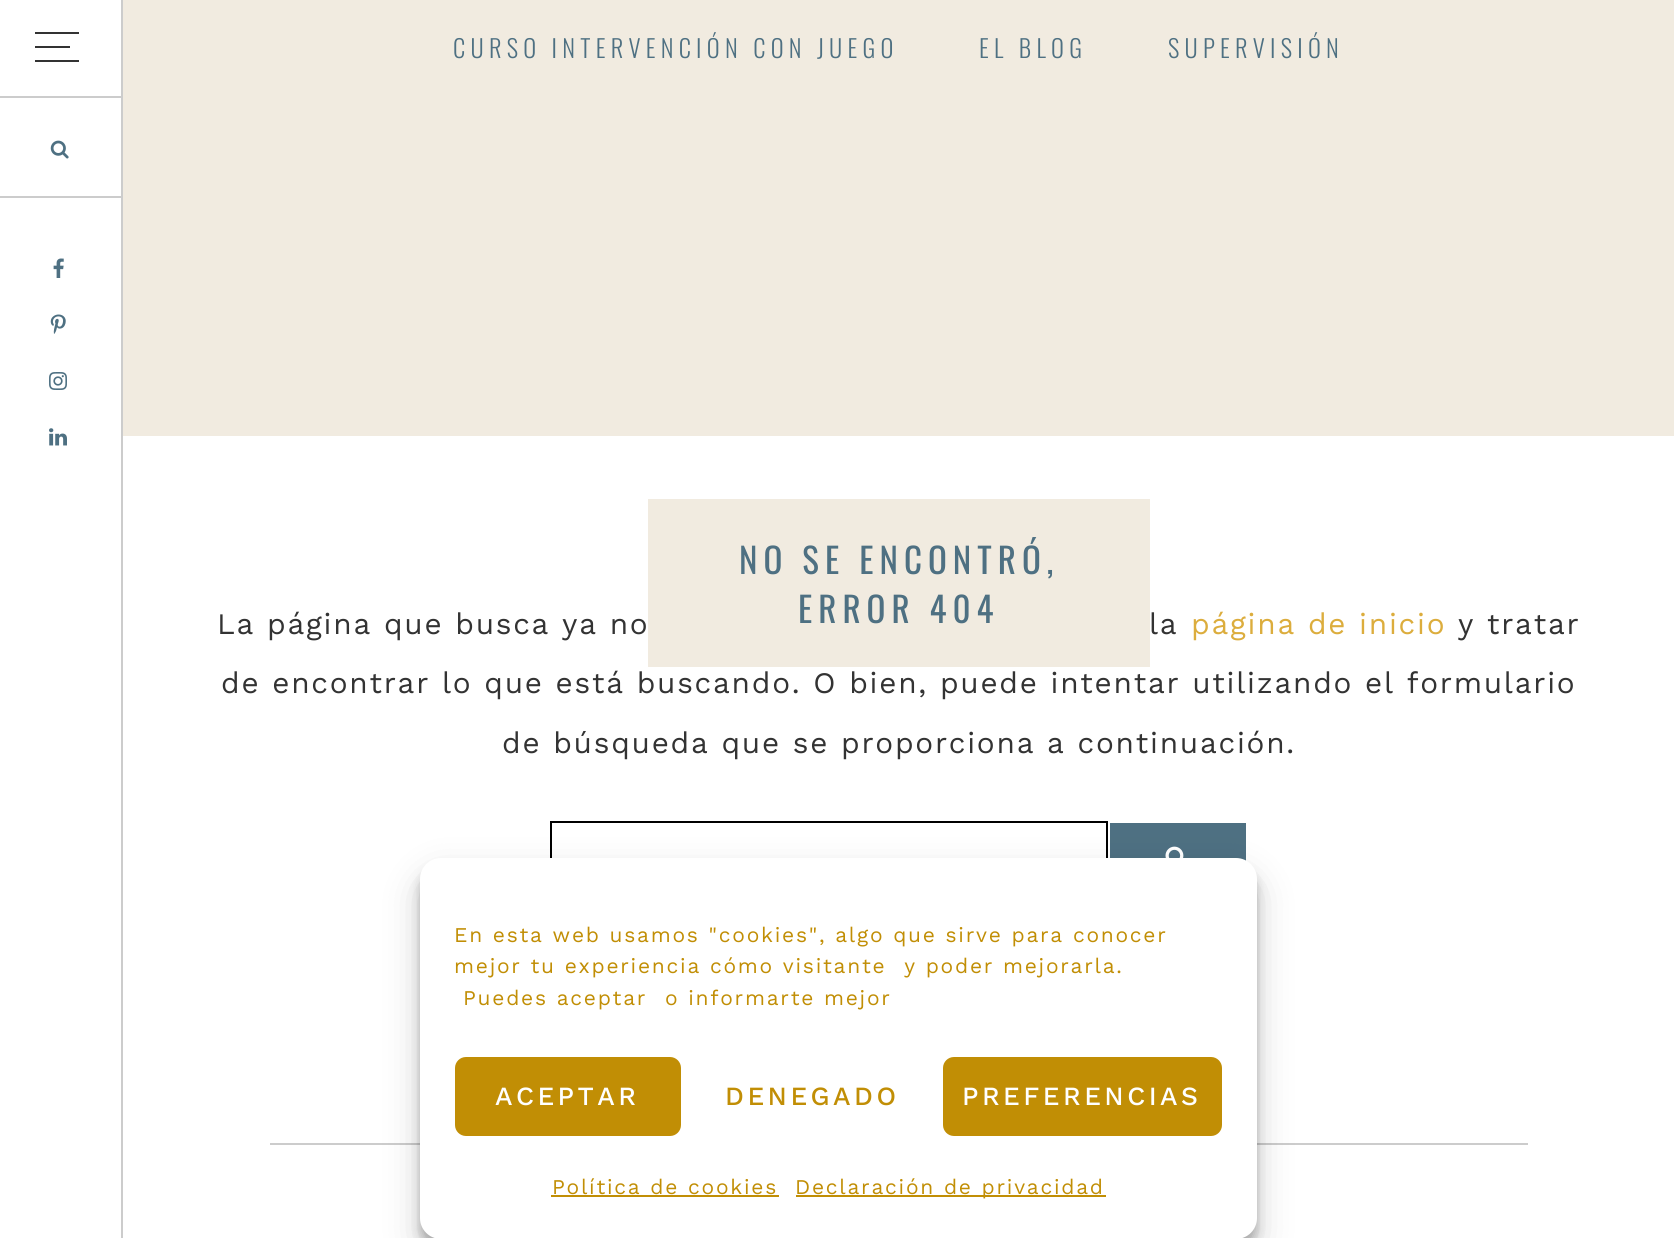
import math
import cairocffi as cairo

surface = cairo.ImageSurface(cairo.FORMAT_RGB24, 1674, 1238)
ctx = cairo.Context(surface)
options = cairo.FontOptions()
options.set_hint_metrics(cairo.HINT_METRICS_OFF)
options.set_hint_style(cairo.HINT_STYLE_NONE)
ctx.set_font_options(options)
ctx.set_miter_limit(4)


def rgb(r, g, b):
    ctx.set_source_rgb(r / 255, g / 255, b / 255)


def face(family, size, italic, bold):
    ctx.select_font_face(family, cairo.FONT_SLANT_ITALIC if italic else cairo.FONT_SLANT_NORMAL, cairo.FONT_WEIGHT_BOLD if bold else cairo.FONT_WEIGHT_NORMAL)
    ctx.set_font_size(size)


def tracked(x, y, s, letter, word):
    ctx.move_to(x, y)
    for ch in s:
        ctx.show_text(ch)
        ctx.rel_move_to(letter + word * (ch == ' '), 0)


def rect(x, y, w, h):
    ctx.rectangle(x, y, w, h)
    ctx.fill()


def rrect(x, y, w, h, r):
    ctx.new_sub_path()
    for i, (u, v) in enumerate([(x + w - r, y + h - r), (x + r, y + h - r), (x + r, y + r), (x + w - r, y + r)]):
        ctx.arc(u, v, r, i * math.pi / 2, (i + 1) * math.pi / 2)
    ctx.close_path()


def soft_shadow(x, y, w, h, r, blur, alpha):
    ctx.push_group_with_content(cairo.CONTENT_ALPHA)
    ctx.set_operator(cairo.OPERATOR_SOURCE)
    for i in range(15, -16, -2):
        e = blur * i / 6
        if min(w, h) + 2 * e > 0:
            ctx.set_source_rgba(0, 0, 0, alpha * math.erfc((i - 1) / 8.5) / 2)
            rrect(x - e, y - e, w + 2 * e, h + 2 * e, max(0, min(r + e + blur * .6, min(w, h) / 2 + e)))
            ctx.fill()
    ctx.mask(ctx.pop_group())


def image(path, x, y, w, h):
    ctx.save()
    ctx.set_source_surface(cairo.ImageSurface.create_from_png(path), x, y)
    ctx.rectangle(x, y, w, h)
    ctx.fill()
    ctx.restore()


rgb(255, 255, 255)
ctx.paint()
rgb(241, 235, 224)
rect(123, 0, 1551, 436)
face('Oswald Light', 24.5, 0, 0)
rgb(78, 112, 130)
tracked(453, 58, 'CURSO INTERVENCIÓN CON JUEGO', 5.25, 0)
tracked(979, 58, 'EL BLOG', 5.25, 0)
tracked(1168, 58, 'SUPERVISIÓN', 5.25, 0)
rgb(204, 204, 204)
rect(121, 0, 2, 1238)
rect(0, 96, 121, 2)
rgb(51, 51, 51)
rect(35, 32, 44, 2)
rect(35, 46, 35, 2)
rect(35, 60, 44, 2)
rgb(204, 204, 204)
rect(0, 196, 121, 2)
image('image0.png', 50, 140, 19, 19)
image('image1.png', 53, 258, 11, 20)
image('image2.png', 50, 314, 16, 20)
image('image3.png', 49, 372, 18, 18)
image('image4.png', 49, 428, 18, 18)
rgb(241, 235, 224)
rect(648, 499, 502, 168)
face('Oswald', 35, 0, 0)
rgb(78, 112, 130)
tracked(739, 574, 'NO SE ENCONTRÓ,', 6, 0)
tracked(798, 623, 'ERROR 404', 6, 0)
face('Work Sans', 29.75, 0, 0)
rgb(51, 51, 51)
tracked(217, 634, 'La página que busca ya no', 1.75, 0)
tracked(1149, 634, 'la', 1.75, 0)
rgb(220, 173, 61)
tracked(1191, 634, 'página de inicio', 1.75, 0)
rgb(51, 51, 51)
tracked(1458, 634, 'y tratar', 1.75, 0)
tracked(221, 693, 'de encontrar lo que está buscando. O bien, puede intentar utilizando el formulario', 1.75, 0)
tracked(502, 753, 'de búsqueda que se proporciona a continuación.', 1.75, 0)
ctx.rectangle(551, 822, 556, 75)
rgb(0, 0, 0)
ctx.stroke()
rgb(78, 112, 130)
rect(1110, 823, 136, 38)
image('image5.png', 1165, 846, 19, 12)
rgb(204, 204, 204)
rect(270, 1143, 1258, 2)
rgb(0, 0, 0)
soft_shadow(420, 868, 837, 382, 21, 5, 0.23)
soft_shadow(420, 875, 837, 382, 21, 17.5, 0.19)
rgb(255, 255, 255)
rrect(420, 858, 837, 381, 21)
ctx.fill()
face('Work Sans', 21, 0, 0)
rgb(193, 142, 5)
tracked(454, 942, 'En esta web usamos "cookies", algo que sirve para conocer', 1.75, 0)
tracked(454, 973, 'mejor tu experiencia cómo visitante  y poder mejorarla.', 1.75, 0)
tracked(463, 1005, 'Puedes aceptar  o informarte mejor', 1.75, 0)
rrect(456, 1058, 224, 77, 10)
ctx.fill_preserve()
ctx.stroke()
face('Work Sans Medium', 26.25, 0, 0)
rgb(255, 255, 255)
tracked(495, 1105, 'ACEPTAR', 3.5, 0)
rgb(193, 142, 5)
tracked(725, 1105, 'DENEGADO', 3.5, 0)
rrect(944, 1058, 277, 77, 10)
ctx.fill_preserve()
ctx.stroke()
rgb(255, 255, 255)
tracked(962, 1105, 'PREFERENCIAS', 3.5, 0)
face('Work Sans', 21, 0, 0)
rgb(193, 142, 5)
tracked(552, 1194, 'Política de cookies', 1.75, 0)
rect(551, 1195, 228, 2)
rect(796, 1195, 310, 2)
tracked(795, 1194, 'Declaración de privacidad', 1.75, 0)
surface.write_to_png('render.png')
